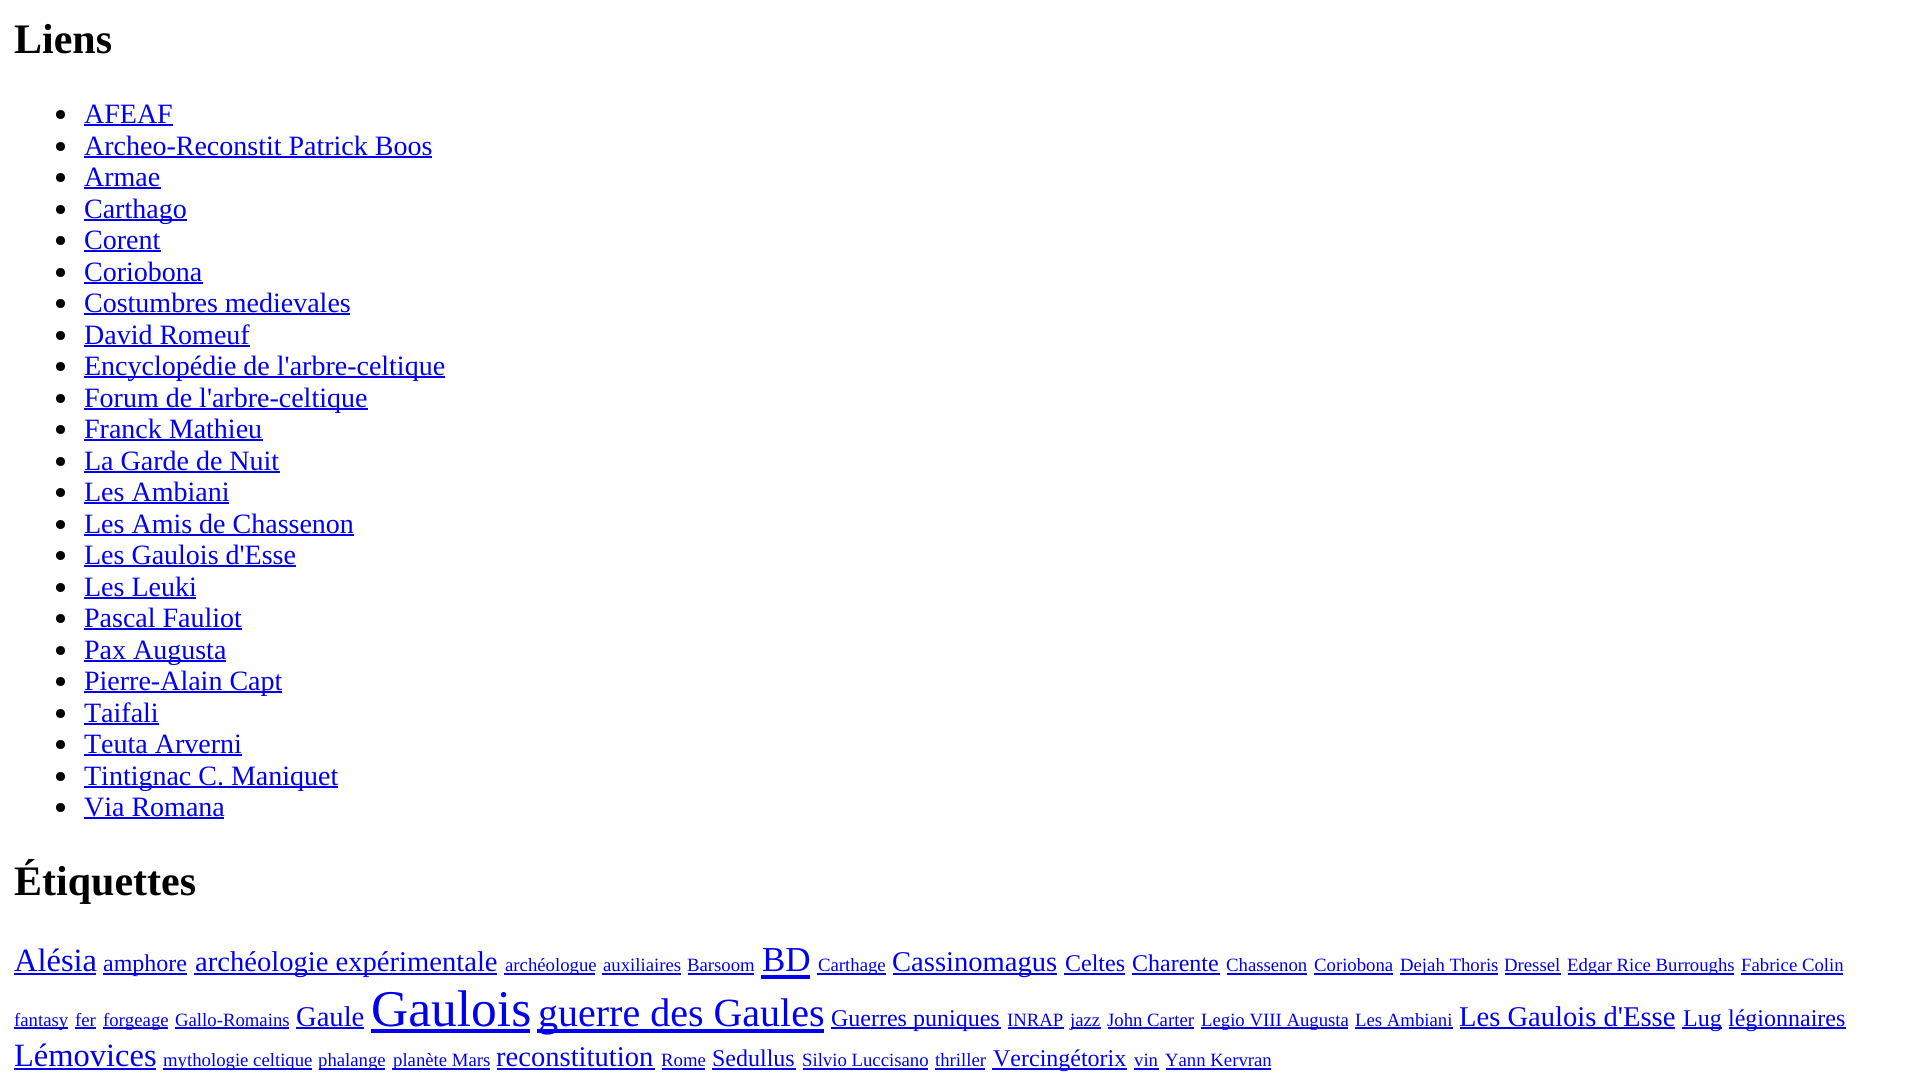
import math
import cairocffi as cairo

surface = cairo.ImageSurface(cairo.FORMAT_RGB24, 1915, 1091)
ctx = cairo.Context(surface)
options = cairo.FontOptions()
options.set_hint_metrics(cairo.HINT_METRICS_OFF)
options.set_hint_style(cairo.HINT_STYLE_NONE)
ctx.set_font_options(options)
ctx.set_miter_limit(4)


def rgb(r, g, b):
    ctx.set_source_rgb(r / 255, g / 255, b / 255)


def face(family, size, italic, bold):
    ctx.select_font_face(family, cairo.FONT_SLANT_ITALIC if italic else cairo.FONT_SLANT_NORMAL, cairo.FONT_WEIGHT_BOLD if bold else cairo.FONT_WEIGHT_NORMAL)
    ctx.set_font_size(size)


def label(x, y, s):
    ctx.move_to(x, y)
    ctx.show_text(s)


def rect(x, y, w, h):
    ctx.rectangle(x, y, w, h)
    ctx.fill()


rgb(255, 255, 255)
ctx.paint()
face('Liberation Serif', 42, 0, 1)
rgb(0, 0, 0)
label(14, 53, 'Liens')
ctx.new_path()
ctx.arc(60.5, 114.5, 4.5, 0, 2 * math.pi)
ctx.fill()
face('Liberation Serif', 28, 0, 0)
rgb(0, 0, 238)
label(84, 123, 'AFEAF')
rect(84, 124, 89, 2)
rgb(0, 0, 0)
ctx.new_path()
ctx.arc(60.5, 146.5, 4.5, 0, 2 * math.pi)
ctx.fill()
rgb(0, 0, 238)
label(84, 155, 'Archeo-Reconstit Patrick Boos')
rect(84, 156, 348, 2)
rgb(0, 0, 0)
ctx.new_path()
ctx.arc(60.5, 177.5, 4.5, 0, 2 * math.pi)
ctx.fill()
rgb(0, 0, 238)
label(84, 186, 'Armae')
rect(84, 187, 77, 2)
rgb(0, 0, 0)
ctx.new_path()
ctx.arc(60.5, 209.5, 4.5, 0, 2 * math.pi)
ctx.fill()
rgb(0, 0, 238)
rect(84, 219, 103, 2)
label(84, 218, 'Carthago')
rgb(0, 0, 0)
ctx.new_path()
ctx.arc(60.5, 240.5, 4.5, 0, 2 * math.pi)
ctx.fill()
rgb(0, 0, 238)
label(84, 249, 'Corent')
rect(84, 250, 77, 2)
rgb(0, 0, 0)
ctx.new_path()
ctx.arc(60.5, 272.5, 4.5, 0, 2 * math.pi)
ctx.fill()
rgb(0, 0, 238)
label(84, 281, 'Coriobona')
rect(84, 282, 119, 2)
rgb(0, 0, 0)
ctx.new_path()
ctx.arc(60.5, 303.5, 4.5, 0, 2 * math.pi)
ctx.fill()
rgb(0, 0, 238)
label(84, 312, 'Costumbres medievales')
rect(84, 313, 266, 2)
rgb(0, 0, 0)
ctx.new_path()
ctx.arc(60.5, 335.5, 4.5, 0, 2 * math.pi)
ctx.fill()
rgb(0, 0, 238)
label(84, 344, 'David Romeuf')
rect(84, 345, 166, 2)
rgb(0, 0, 0)
ctx.new_path()
ctx.arc(60.5, 366.5, 4.5, 0, 2 * math.pi)
ctx.fill()
rgb(0, 0, 238)
rect(84, 376, 361, 2)
label(84, 375, 'Encyclopédie de l\'arbre-celtique')
rgb(0, 0, 0)
ctx.new_path()
ctx.arc(60.5, 398.5, 4.5, 0, 2 * math.pi)
ctx.fill()
rgb(0, 0, 238)
rect(84, 408, 284, 2)
label(84, 407, 'Forum de l\'arbre-celtique')
rgb(0, 0, 0)
ctx.new_path()
ctx.arc(60.5, 429.5, 4.5, 0, 2 * math.pi)
ctx.fill()
rgb(0, 0, 238)
label(84, 438, 'Franck Mathieu')
rect(84, 439, 179, 2)
rgb(0, 0, 0)
ctx.new_path()
ctx.arc(60.5, 461.5, 4.5, 0, 2 * math.pi)
ctx.fill()
rgb(0, 0, 238)
label(84, 470, 'La Garde de Nuit')
rect(84, 471, 196, 2)
rgb(0, 0, 0)
ctx.new_path()
ctx.arc(60.5, 492.5, 4.5, 0, 2 * math.pi)
ctx.fill()
rgb(0, 0, 238)
label(84, 501, 'Les Ambiani')
rect(84, 502, 145, 2)
rgb(0, 0, 0)
ctx.new_path()
ctx.arc(60.5, 524.5, 4.5, 0, 2 * math.pi)
ctx.fill()
rgb(0, 0, 238)
label(84, 533, 'Les Amis de Chassenon')
rect(84, 534, 270, 2)
rgb(0, 0, 0)
ctx.new_path()
ctx.arc(60.5, 555.5, 4.5, 0, 2 * math.pi)
ctx.fill()
rgb(0, 0, 238)
label(84, 564, 'Les Gaulois d\'Esse')
rect(84, 565, 212, 2)
rgb(0, 0, 0)
ctx.new_path()
ctx.arc(60.5, 587.5, 4.5, 0, 2 * math.pi)
ctx.fill()
rgb(0, 0, 238)
label(84, 596, 'Les Leuki')
rect(84, 597, 112, 2)
rgb(0, 0, 0)
ctx.new_path()
ctx.arc(60.5, 618.5, 4.5, 0, 2 * math.pi)
ctx.fill()
rgb(0, 0, 238)
label(84, 627, 'Pascal Fauliot')
rect(84, 628, 158, 2)
rgb(0, 0, 0)
ctx.new_path()
ctx.arc(60.5, 650.5, 4.5, 0, 2 * math.pi)
ctx.fill()
rgb(0, 0, 238)
rect(84, 660, 142, 2)
label(84, 659, 'Pax Augusta')
rgb(0, 0, 0)
ctx.new_path()
ctx.arc(60.5, 681.5, 4.5, 0, 2 * math.pi)
ctx.fill()
rgb(0, 0, 238)
rect(84, 691, 198, 2)
label(84, 690, 'Pierre-Alain Capt')
rgb(0, 0, 0)
ctx.new_path()
ctx.arc(60.5, 713.5, 4.5, 0, 2 * math.pi)
ctx.fill()
rgb(0, 0, 238)
label(84, 722, 'Taifali')
rect(84, 723, 75, 2)
rgb(0, 0, 0)
ctx.new_path()
ctx.arc(60.5, 744.5, 4.5, 0, 2 * math.pi)
ctx.fill()
rgb(0, 0, 238)
label(84, 753, 'Teuta Arverni')
rect(84, 754, 158, 2)
rgb(0, 0, 0)
ctx.new_path()
ctx.arc(60.5, 776.5, 4.5, 0, 2 * math.pi)
ctx.fill()
rgb(0, 0, 238)
rect(84, 786, 254, 2)
label(84, 785, 'Tintignac C. Maniquet')
rgb(0, 0, 0)
ctx.new_path()
ctx.arc(60.5, 807.5, 4.5, 0, 2 * math.pi)
ctx.fill()
rgb(0, 0, 238)
label(84, 816, 'Via Romana')
rect(84, 817, 140, 2)
face('Liberation Serif', 42, 0, 1)
rgb(0, 0, 0)
label(14, 895, 'Étiquettes')
face('Liberation Serif', 32.5, 0, 0)
rgb(0, 0, 238)
label(14, 971, 'Alésia')
rect(14, 973, 82, 2)
rect(103, 973, 84, 2)
face('Liberation Serif', 24, 0, 0)
label(103, 971, 'amphore')
rect(194, 973, 303, 2)
face('Liberation Serif', 28.6, 0, 0)
label(195, 971, 'archéologie expérimentale')
rect(504, 973, 91, 2)
face('Liberation Serif', 18.75, 0, 0)
label(505, 971, 'archéologue')
label(603, 971, 'auxiliaires')
rect(602, 973, 79, 2)
label(687, 971, 'Barsoom')
rect(688, 973, 66, 2)
face('Liberation Serif', 35, 0, 0)
label(762, 971, 'BD')
rect(761, 975, 49, 4)
rect(817, 973, 69, 2)
face('Liberation Serif', 18.75, 0, 0)
label(818, 971, 'Carthage')
rect(893, 973, 164, 2)
face('Liberation Serif', 28.6, 0, 0)
label(892, 971, 'Cassinomagus')
face('Liberation Serif', 24, 0, 0)
label(1065, 971, 'Celtes')
rect(1064, 973, 61, 2)
label(1132, 971, 'Charente')
rect(1132, 973, 88, 2)
face('Liberation Serif', 18.75, 0, 0)
label(1226, 971, 'Chassenon')
rect(1227, 973, 80, 2)
label(1314, 971, 'Coriobona')
rect(1314, 973, 79, 2)
rect(1400, 973, 98, 2)
label(1400, 971, 'Dejah Thoris')
label(1504, 971, 'Dressel')
rect(1505, 973, 56, 2)
rect(1568, 973, 166, 2)
label(1567, 971, 'Edgar Rice Burroughs')
label(1741, 971, 'Fabrice Colin')
rect(1741, 973, 102, 2)
rect(14, 1027, 54, 2)
label(14, 1026, 'fantasy')
label(75, 1026, 'fer')
rect(75, 1027, 21, 2)
rect(103, 1027, 65, 2)
label(103, 1026, 'forgeage')
label(175, 1026, 'Gallo-Romains')
rect(175, 1027, 114, 2)
face('Liberation Serif', 28.6, 0, 0)
label(296, 1026, 'Gaule')
rect(296, 1027, 68, 2)
face('Liberation Serif', 51.5, 0, 0)
label(371, 1026, 'Gaulois')
rect(371, 1029, 159, 4)
rect(537, 1029, 287, 4)
face('Liberation Serif', 40, 0, 0)
label(538, 1026, 'guerre des Gaules')
rect(831, 1027, 170, 2)
face('Liberation Serif', 24, 0, 0)
label(831, 1026, 'Guerres puniques')
face('Liberation Serif', 18.75, 0, 0)
label(1007, 1026, 'INRAP')
rect(1008, 1027, 56, 2)
rect(1071, 1027, 30, 2)
label(1070, 1026, 'jazz')
label(1107, 1026, 'John Carter')
rect(1108, 1027, 86, 2)
rect(1201, 1027, 147, 2)
label(1201, 1026, 'Legio VIII Augusta')
label(1355, 1026, 'Les Ambiani')
rect(1355, 1027, 98, 2)
face('Liberation Serif', 28.6, 0, 0)
label(1459, 1026, 'Les Gaulois d\'Esse')
rect(1460, 1027, 215, 2)
rect(1682, 1027, 40, 2)
face('Liberation Serif', 24, 0, 0)
label(1683, 1026, 'Lug')
rect(1729, 1027, 117, 2)
label(1728, 1026, 'légionnaires')
face('Liberation Serif', 32.5, 0, 0)
label(14, 1066, 'Lémovices')
rect(14, 1068, 142, 2)
rect(163, 1068, 149, 2)
face('Liberation Serif', 18.75, 0, 0)
label(163, 1066, 'mythologie celtique')
rect(319, 1068, 66, 2)
label(318, 1066, 'phalange')
rect(392, 1068, 98, 2)
label(393, 1066, 'planète Mars')
face('Liberation Serif', 28.6, 0, 0)
label(496, 1066, 'reconstitution')
rect(497, 1068, 158, 2)
face('Liberation Serif', 18.75, 0, 0)
label(661, 1066, 'Rome')
rect(662, 1068, 43, 2)
face('Liberation Serif', 24, 0, 0)
label(712, 1066, 'Sedullus')
rect(712, 1068, 84, 2)
face('Liberation Serif', 18.75, 0, 0)
label(802, 1066, 'Silvio Luccisano')
rect(803, 1068, 125, 2)
label(935, 1066, 'thriller')
rect(935, 1068, 50, 2)
rect(992, 1068, 135, 2)
face('Liberation Serif', 24, 0, 0)
label(993, 1066, 'Vercingétorix')
face('Liberation Serif', 18.75, 0, 0)
label(1134, 1066, 'vin')
rect(1134, 1068, 25, 2)
label(1165, 1066, 'Yann Kervran')
rect(1166, 1068, 105, 2)
surface.write_to_png('render.png')
